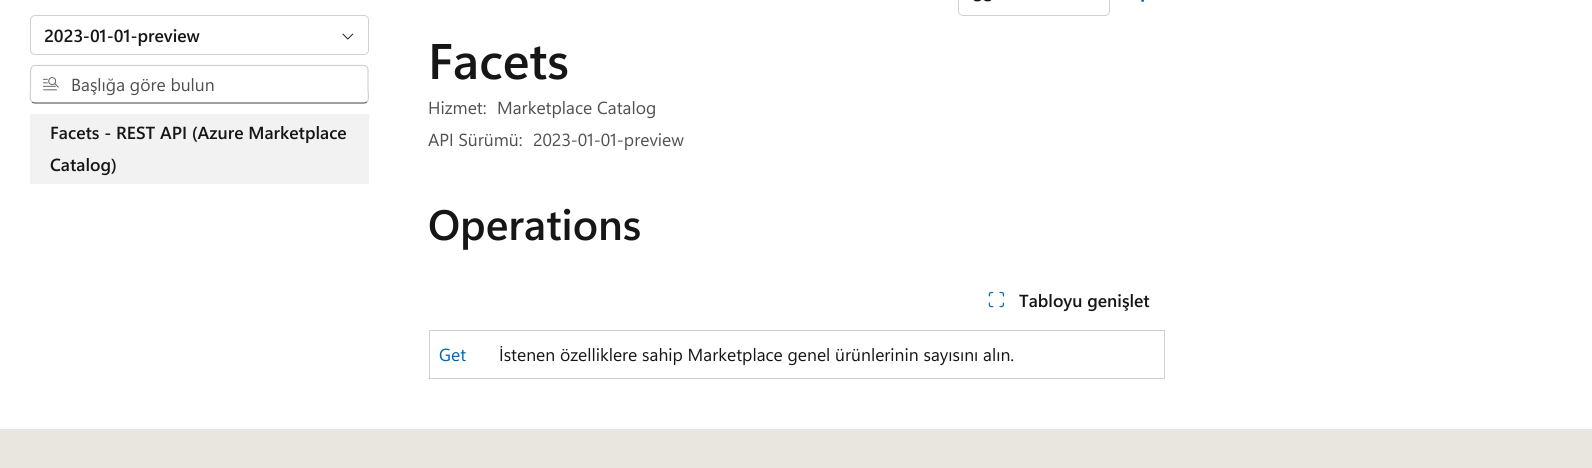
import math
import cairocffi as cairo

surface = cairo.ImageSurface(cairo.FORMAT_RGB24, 1592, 468)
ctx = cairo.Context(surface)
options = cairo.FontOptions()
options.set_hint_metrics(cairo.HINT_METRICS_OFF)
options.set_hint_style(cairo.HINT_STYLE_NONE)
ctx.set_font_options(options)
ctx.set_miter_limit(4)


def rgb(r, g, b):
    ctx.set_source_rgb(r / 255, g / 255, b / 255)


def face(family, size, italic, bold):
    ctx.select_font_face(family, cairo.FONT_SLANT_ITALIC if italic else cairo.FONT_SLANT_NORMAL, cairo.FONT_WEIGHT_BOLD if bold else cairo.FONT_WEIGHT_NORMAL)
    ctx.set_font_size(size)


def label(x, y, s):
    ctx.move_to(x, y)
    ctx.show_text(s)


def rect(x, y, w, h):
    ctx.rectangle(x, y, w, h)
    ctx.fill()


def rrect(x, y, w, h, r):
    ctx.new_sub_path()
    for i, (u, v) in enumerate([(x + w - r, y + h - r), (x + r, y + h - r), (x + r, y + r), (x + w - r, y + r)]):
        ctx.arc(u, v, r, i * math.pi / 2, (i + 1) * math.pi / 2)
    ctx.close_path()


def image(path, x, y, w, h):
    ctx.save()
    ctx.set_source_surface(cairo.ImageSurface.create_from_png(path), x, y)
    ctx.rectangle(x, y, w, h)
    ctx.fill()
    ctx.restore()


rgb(255, 255, 255)
ctx.paint()
rrect(30.5, 15.5, 338, 39, 4.5)
rgb(209, 209, 209)
ctx.set_line_width(1)
ctx.stroke()
face('Segoe UI SemiBold', 17.5, 0, 0)
rgb(22, 22, 22)
label(44, 42, '2023-01-01-preview')
image('image0.png', 342, 33, 12, 7)
ctx.new_path()
ctx.move_to(367, 102)
ctx.curve_to(366, 102.5, 365, 103, 364, 103)
ctx.line_to(35, 103)
ctx.curve_to(34, 103, 32.5, 102.5, 32, 102)
rgb(97, 97, 97)
ctx.set_line_width(1.2)
ctx.stroke()
ctx.new_path()
ctx.move_to(32, 102)
ctx.curve_to(29, 99, 30.5, 92.5, 30.5, 89)
ctx.line_to(30.5, 75)
ctx.curve_to(30.5, 71.5, 30, 65.5, 35, 65.5)
ctx.line_to(364, 65.5)
ctx.curve_to(369, 65.5, 368, 71.5, 368, 75)
ctx.line_to(368, 89)
ctx.curve_to(368, 92.5, 369.5, 99, 367, 102)
rgb(209, 209, 209)
ctx.stroke()
image('image1.png', 43, 77, 16, 14)
face('Segoe UI', 17.5, 0, 0)
rgb(80, 80, 80)
label(71, 91, 'Başlığa göre bulun')
rgb(242, 242, 242)
rect(30, 114, 339, 70)
face('Segoe UI SemiBold', 17.5, 0, 0)
rgb(22, 22, 22)
label(50, 139, 'Facets - REST API (Azure Marketplace')
label(50, 171, 'Catalog)')
rrect(958.5, -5.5, 151, 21, 4.5)
rgb(209, 209, 209)
ctx.set_line_width(1)
ctx.stroke()
image('image2.png', 973, 0, 19, 2)
image('image3.png', 1141, 0, 4, 2)
face('Segoe UI SemiBold', 50, 0, 0)
rgb(22, 22, 22)
label(428, 79, 'Facets')
face('Segoe UI', 17.5, 0, 0)
rgb(80, 80, 80)
label(428, 114, 'Hizmet:')
label(497, 114, 'Marketplace Catalog')
label(428, 146, 'API Sürümü:')
label(533, 146, '2023-01-01-preview')
face('Segoe UI SemiBold', 42.5, 0, 0)
rgb(22, 22, 22)
label(428, 240, 'Operations')
image('image4.png', 988, 291, 17, 17)
face('Segoe UI SemiBold', 17.5, 0, 0)
label(1019, 307, 'Tabloyu genişlet')
rgb(209, 209, 209)
rect(429, 330, 736, 1)
rect(1164, 330, 1, 49)
rect(429, 378, 736, 1)
rect(429, 330, 1, 49)
face('Segoe UI', 17.5, 0, 0)
rgb(0, 101, 179)
label(439, 361, 'Get')
rgb(22, 22, 22)
label(499, 361, 'İstenen özelliklere sahip Marketplace genel ürünlerinin sayısını alın.')
rgb(232, 230, 223)
rect(0, 430, 1592, 38)
rgb(230, 230, 230)
rect(0, 429, 1592, 1)
surface.write_to_png('render.png')
